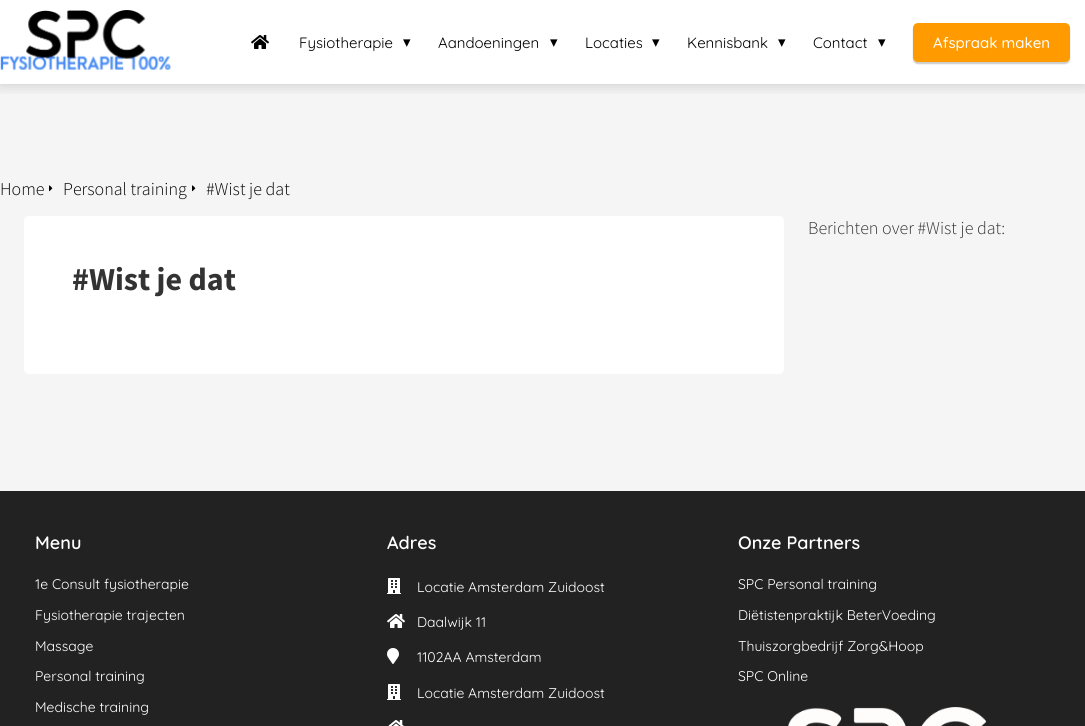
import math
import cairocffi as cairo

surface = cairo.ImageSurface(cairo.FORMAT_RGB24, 1085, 726)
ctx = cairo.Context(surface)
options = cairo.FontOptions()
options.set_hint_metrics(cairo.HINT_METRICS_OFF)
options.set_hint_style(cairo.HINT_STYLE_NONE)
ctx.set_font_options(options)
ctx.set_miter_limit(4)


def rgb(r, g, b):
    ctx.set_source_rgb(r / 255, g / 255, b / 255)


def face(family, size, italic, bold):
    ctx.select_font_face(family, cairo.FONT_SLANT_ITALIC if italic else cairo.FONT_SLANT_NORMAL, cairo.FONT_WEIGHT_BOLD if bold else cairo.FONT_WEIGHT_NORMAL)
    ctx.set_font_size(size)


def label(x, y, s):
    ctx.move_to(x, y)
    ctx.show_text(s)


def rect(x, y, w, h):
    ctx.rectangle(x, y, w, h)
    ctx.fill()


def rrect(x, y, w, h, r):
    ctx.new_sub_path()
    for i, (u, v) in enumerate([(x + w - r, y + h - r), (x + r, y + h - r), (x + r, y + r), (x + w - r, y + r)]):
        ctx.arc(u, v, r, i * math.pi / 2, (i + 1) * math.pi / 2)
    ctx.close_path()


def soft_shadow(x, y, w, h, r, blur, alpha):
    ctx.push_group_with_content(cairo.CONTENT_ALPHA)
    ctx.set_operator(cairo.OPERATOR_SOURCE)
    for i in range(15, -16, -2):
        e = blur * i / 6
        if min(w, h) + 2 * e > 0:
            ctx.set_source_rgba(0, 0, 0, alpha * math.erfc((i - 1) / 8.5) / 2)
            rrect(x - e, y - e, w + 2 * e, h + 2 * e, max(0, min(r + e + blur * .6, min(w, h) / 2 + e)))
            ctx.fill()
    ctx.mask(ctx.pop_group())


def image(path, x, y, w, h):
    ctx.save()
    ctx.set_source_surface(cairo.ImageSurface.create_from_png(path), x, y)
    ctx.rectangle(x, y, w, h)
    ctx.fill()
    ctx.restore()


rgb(255, 255, 255)
ctx.paint()
rgb(245, 245, 245)
rect(0, 84, 1085, 407)
ctx.save()
ctx.rectangle(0, 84, 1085, 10)
ctx.clip()
rgb(0, 0, 0)
soft_shadow(0, 0, 1085, 84, 0, 7.5, 0.2)
ctx.restore()
image('image0.png', 0, 10, 171, 60)
image('image1.png', 251, 35, 18, 14)
face('Quicksand', 15, 0, 0)
rgb(0, 0, 0)
label(299, 48, 'Fysiotherapie')
face('DejaVu Sans', 15, 0, 0)
label(403, 47, '▾')
face('Quicksand', 15, 0, 0)
label(438, 48, 'Aandoeningen')
face('DejaVu Sans', 15, 0, 0)
label(550, 47, '▾')
face('Quicksand', 15, 0, 0)
label(585, 48, 'Locaties')
face('DejaVu Sans', 15, 0, 0)
label(652, 47, '▾')
face('Quicksand', 15, 0, 0)
label(687, 48, 'Kennisbank')
face('DejaVu Sans', 15, 0, 0)
label(778, 47, '▾')
face('Quicksand', 15, 0, 0)
label(813, 48, 'Contact')
face('DejaVu Sans', 15, 0, 0)
label(878, 47, '▾')
rgb(0, 0, 0)
soft_shadow(913, 25, 157, 39, 5, 0.5, 0.2)
rgb(255, 155, 0)
rrect(913, 23, 157, 39, 5)
ctx.fill()
face('Quicksand Medium', 15, 0, 0)
rgb(255, 255, 255)
label(933, 48, 'Afspraak maken')
face('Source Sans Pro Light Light', 18, 0, 0)
rgb(0, 0, 0)
label(0, 195, 'Home')
image('image2.png', 49, 185, 4, 7)
label(63, 195, 'Personal training')
image('image2.png', 192, 185, 4, 7)
label(206, 195, '#Wist je dat')
rgb(51, 51, 51)
label(808, 234, 'Berichten over #Wist je dat:')
rgb(255, 255, 255)
rrect(24, 216, 760, 158, 5)
ctx.fill()
face('Source Sans Pro', 32, 0, 1)
rgb(51, 51, 51)
label(72, 290, '#Wist je dat')
rgb(34, 34, 34)
rect(0, 491, 1085, 235)
face('Quicksand SemiBold', 18, 0, 0)
rgb(255, 255, 255)
label(35, 549, 'Menu')
face('Quicksand', 14, 0, 0)
label(35, 589, '1e Consult fysiotherapie')
label(35, 620, 'Fysiotherapie trajecten')
label(35, 651, 'Massage')
label(35, 681, 'Personal training')
label(35, 712, 'Medische training')
face('Quicksand SemiBold', 18, 0, 0)
label(387, 549, 'Adres')
image('image3.png', 387, 578, 14, 16)
face('Quicksand', 14, 0, 0)
label(417, 592, 'Locatie Amsterdam Zuidoost')
image('image4.png', 387, 614, 18, 14)
label(417, 627, 'Daalwijk 11')
image('image5.png', 387, 648, 12, 16)
label(417, 662, '1102AA Amsterdam')
image('image3.png', 387, 684, 14, 16)
label(417, 698, 'Locatie Amsterdam Zuidoost')
image('image6.png', 388, 720, 16, 6)
face('Quicksand SemiBold', 18, 0, 0)
label(738, 549, 'Onze Partners')
face('Quicksand', 14, 0, 0)
label(738, 589, 'SPC Personal training')
label(738, 620, 'Diëtistenpraktijk BeterVoeding')
label(738, 651, 'Thuiszorgbedrijf Zorg&Hoop')
label(738, 681, 'SPC Online')
image('image7.png', 788, 707, 199, 19)
surface.write_to_png('render.png')
